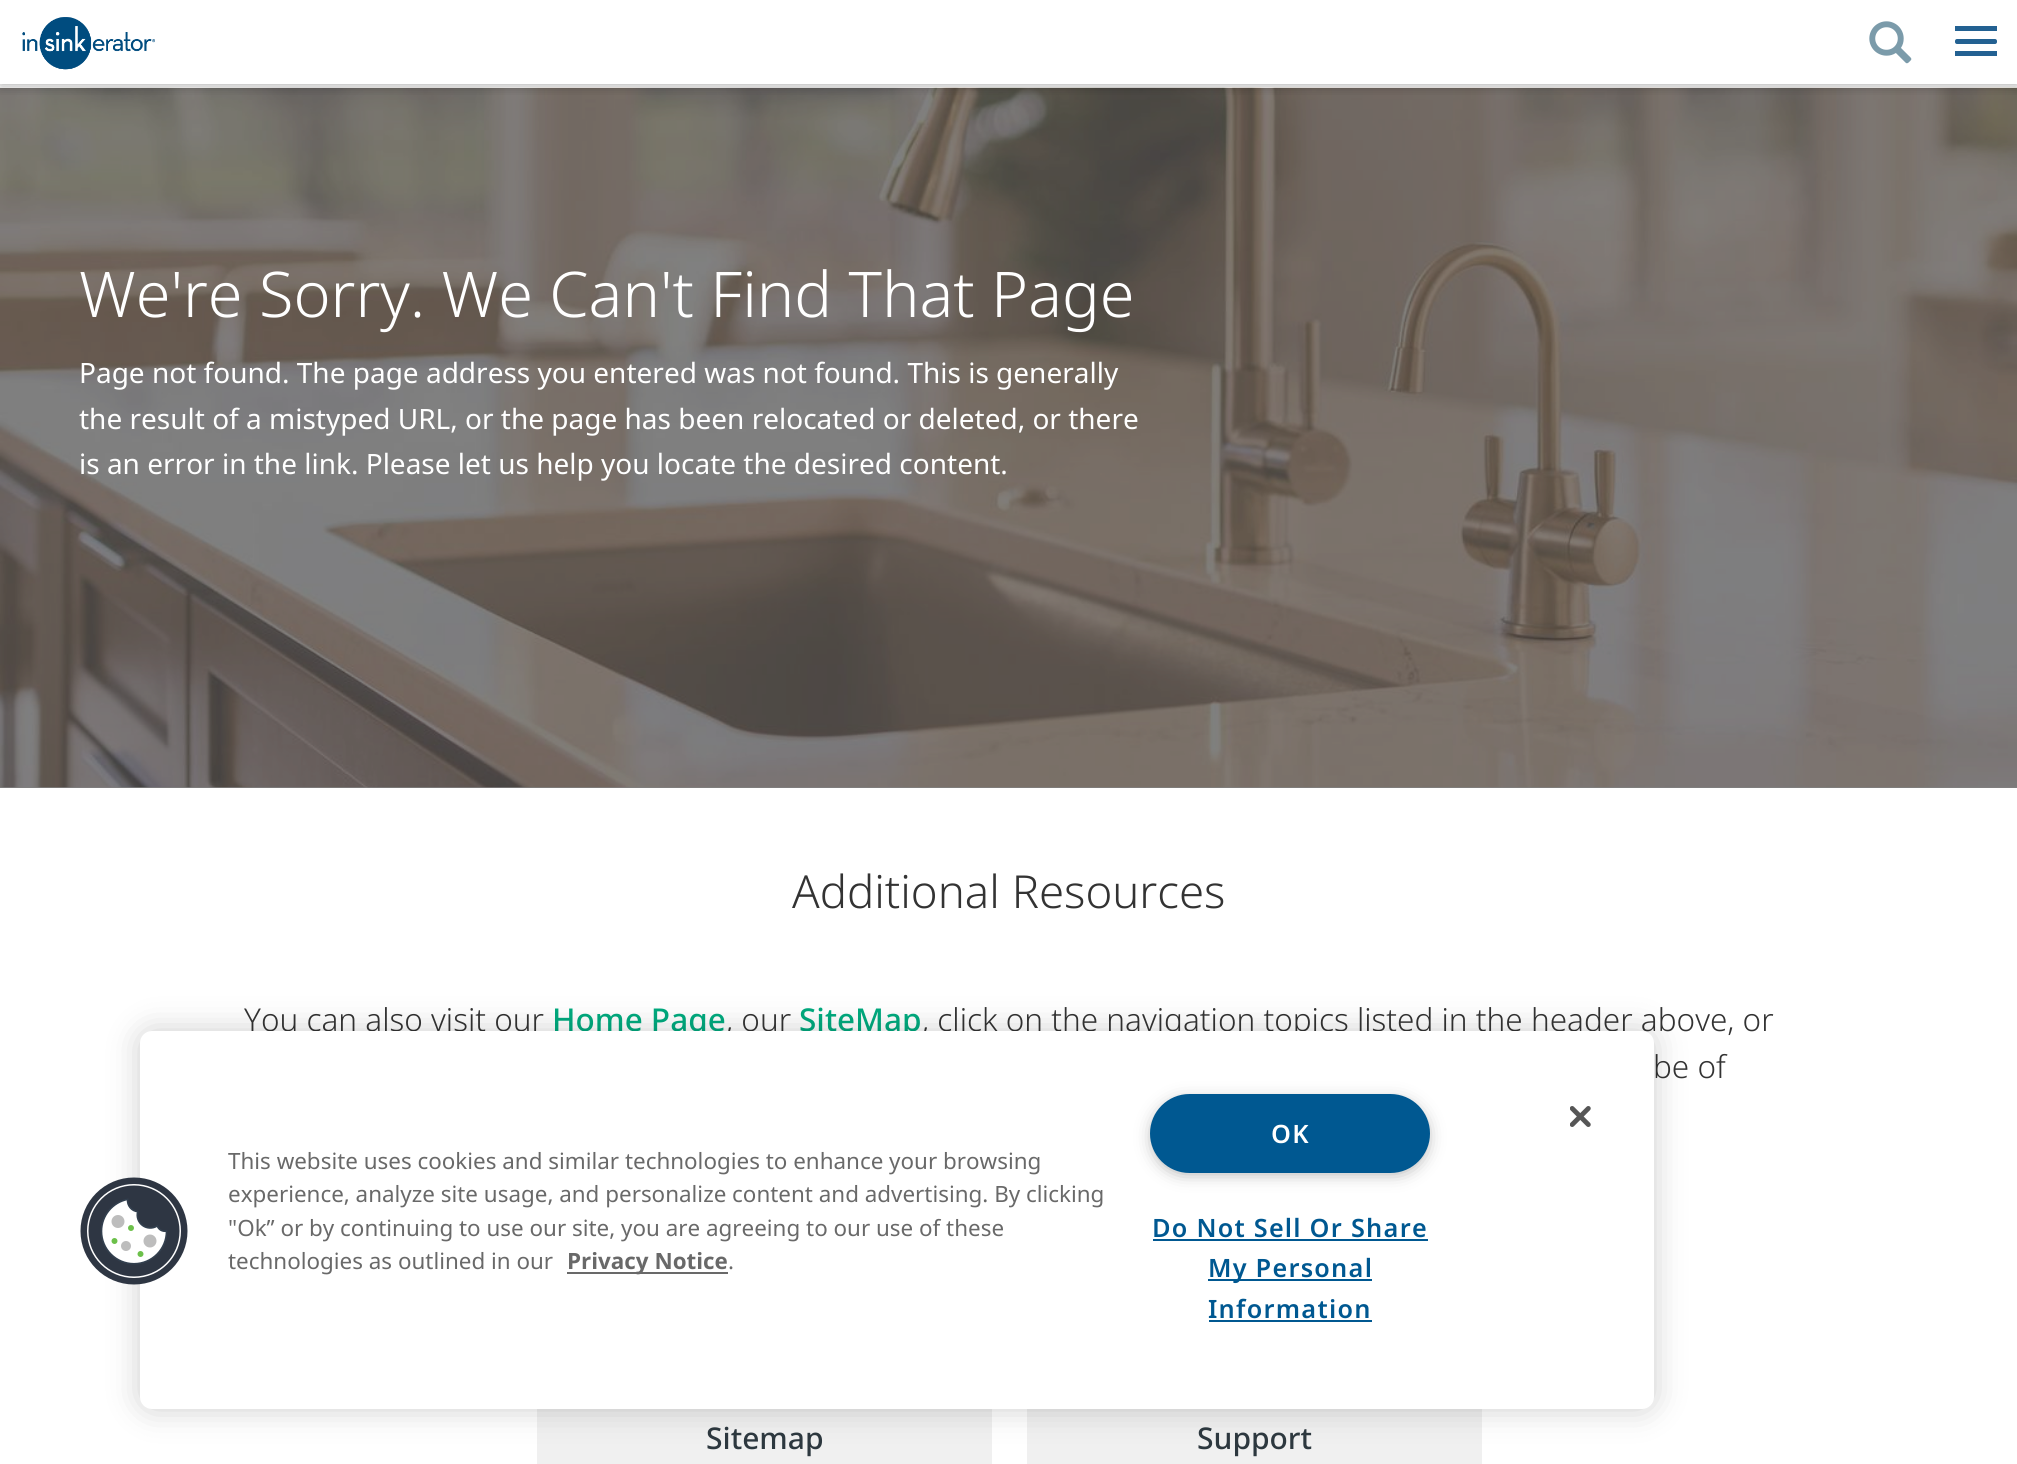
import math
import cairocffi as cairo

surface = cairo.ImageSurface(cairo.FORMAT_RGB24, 2017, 1464)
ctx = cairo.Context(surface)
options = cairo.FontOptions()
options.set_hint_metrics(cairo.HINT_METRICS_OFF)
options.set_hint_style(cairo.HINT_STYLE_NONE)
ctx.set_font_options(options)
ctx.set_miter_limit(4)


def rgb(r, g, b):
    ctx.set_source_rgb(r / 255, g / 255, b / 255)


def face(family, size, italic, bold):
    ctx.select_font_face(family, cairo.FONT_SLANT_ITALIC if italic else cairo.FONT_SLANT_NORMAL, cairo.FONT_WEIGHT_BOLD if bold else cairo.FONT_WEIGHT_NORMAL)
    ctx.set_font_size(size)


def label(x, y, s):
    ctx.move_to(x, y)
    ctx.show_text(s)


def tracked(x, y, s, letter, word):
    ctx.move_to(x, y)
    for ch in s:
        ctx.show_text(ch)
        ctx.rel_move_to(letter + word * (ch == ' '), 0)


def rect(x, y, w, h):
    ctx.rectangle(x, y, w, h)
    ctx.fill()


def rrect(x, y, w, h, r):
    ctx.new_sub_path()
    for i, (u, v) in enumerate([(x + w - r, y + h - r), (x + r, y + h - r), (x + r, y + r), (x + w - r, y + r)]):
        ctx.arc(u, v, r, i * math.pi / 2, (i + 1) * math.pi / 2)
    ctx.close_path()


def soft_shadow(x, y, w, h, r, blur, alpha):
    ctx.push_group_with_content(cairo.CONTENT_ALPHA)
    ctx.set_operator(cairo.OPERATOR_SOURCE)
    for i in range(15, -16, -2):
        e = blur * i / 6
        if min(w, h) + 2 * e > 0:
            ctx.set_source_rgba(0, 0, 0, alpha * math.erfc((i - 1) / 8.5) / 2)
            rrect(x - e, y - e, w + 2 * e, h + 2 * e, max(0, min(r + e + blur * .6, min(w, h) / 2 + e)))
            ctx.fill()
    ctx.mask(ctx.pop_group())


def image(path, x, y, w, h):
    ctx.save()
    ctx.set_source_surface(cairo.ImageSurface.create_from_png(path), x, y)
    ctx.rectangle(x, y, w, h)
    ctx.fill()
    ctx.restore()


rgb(255, 255, 255)
ctx.paint()
rgb(128, 128, 128)
rect(0, 787, 2017, 1)
image('image2.png', 0, 87, 2017, 701)
ctx.save()
ctx.rectangle(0, 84, 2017, 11)
ctx.clip()
rgb(0, 0, 0)
soft_shadow(0, 2, 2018, 84, 0, 6, 0.3)
ctx.restore()
image('image0.png', 22, 17, 133, 53)
rgb(35, 97, 146)
rrect(1955, 39, 42, 5, 2)
ctx.fill()
rect(1955, 26, 42, 5)
rect(1955, 51, 42, 5)
image('image1.png', 1869, 21, 43, 43)
face('Noto Sans Light', 63, 0, 0)
rgb(255, 255, 255)
label(79, 317, 'We\'re Sorry. We Can\'t Find That Page')
face('Noto Sans', 28, 0, 0)
label(79, 383, 'Page not found. The page address you entered was not found. This is generally')
label(79, 429, 'the result of a mistyped URL, or the page has been relocated or deleted, or there')
label(79, 474, 'is an error in the link. Please let us help you locate the desired content.')
face('Noto Sans Light', 45.5, 0, 0)
rgb(51, 51, 51)
label(792, 908, 'Additional Resources')
face('Noto Sans Light', 31.5, 0, 0)
label(244, 1031, 'You can also visit our')
face('Noto Sans Medium', 31.5, 0, 0)
rgb(0, 170, 126)
label(552, 1031, 'Home Page')
face('Noto Sans Light', 31.5, 0, 0)
rgb(51, 51, 51)
label(726, 1031, ', our')
face('Noto Sans Medium', 31.5, 0, 0)
rgb(0, 170, 126)
label(799, 1031, 'SiteMap')
face('Noto Sans Light', 31.5, 0, 0)
rgb(51, 51, 51)
label(922, 1031, ', click on the navigation topics listed in the header above, or')
label(1653, 1078, 'be of')
rgb(240, 240, 240)
rect(537, 1409, 455, 55)
face('Noto Sans Medium', 30, 0, 0)
rgb(45, 56, 63)
label(706, 1449, 'Sitemap')
rgb(240, 240, 240)
rect(1027, 1409, 455, 55)
rgb(45, 56, 63)
label(1197, 1449, 'Support')
rgb(0, 0, 0)
soft_shadow(140, 1031, 1514, 378, 12, 16, 0.2)
rgb(255, 255, 255)
rrect(140, 1031, 1514, 378, 12)
ctx.fill()
image('image3.png', 80, 1177, 108, 108)
image('image4.png', 1570, 1106, 21, 21)
face('Noto Sans', 22.4, 0, 0)
rgb(105, 105, 105)
label(228, 1169, 'This website uses cookies and similar technologies to enhance your browsing')
label(228, 1202, 'experience, analyze site usage, and personalize content and advertising. By clicking')
label(228, 1236, '"Ok” or by continuing to use our site, you are agreeing to our use of these')
label(228, 1269, 'technologies as outlined in our')
rect(567, 1272, 161, 2)
face('Noto Sans', 22.4, 0, 1)
label(567, 1269, 'Privacy Notice')
face('Noto Sans', 22.4, 0, 0)
label(728, 1269, '.')
rgb(153, 153, 153)
soft_shadow(1155, 1103, 270, 68, 34, 9, 1)
rgb(0, 88, 145)
rrect(1151, 1095, 278, 77, 38.5)
ctx.fill_preserve()
ctx.stroke()
face('Noto Sans SemiBold', 25.25, 0, 0)
rgb(255, 255, 255)
tracked(1271, 1143, 'OK', 1.25, 0)
rgb(0, 88, 145)
tracked(1152, 1237, 'Do Not Sell Or Share', 1.25, 0)
rect(1153, 1239, 275, 2)
rect(1208, 1279, 164, 2)
tracked(1208, 1277, 'My Personal', 1.25, 0)
tracked(1208, 1318, 'Information', 1.25, 0)
rect(1209, 1320, 163, 2)
surface.write_to_png('render.png')
